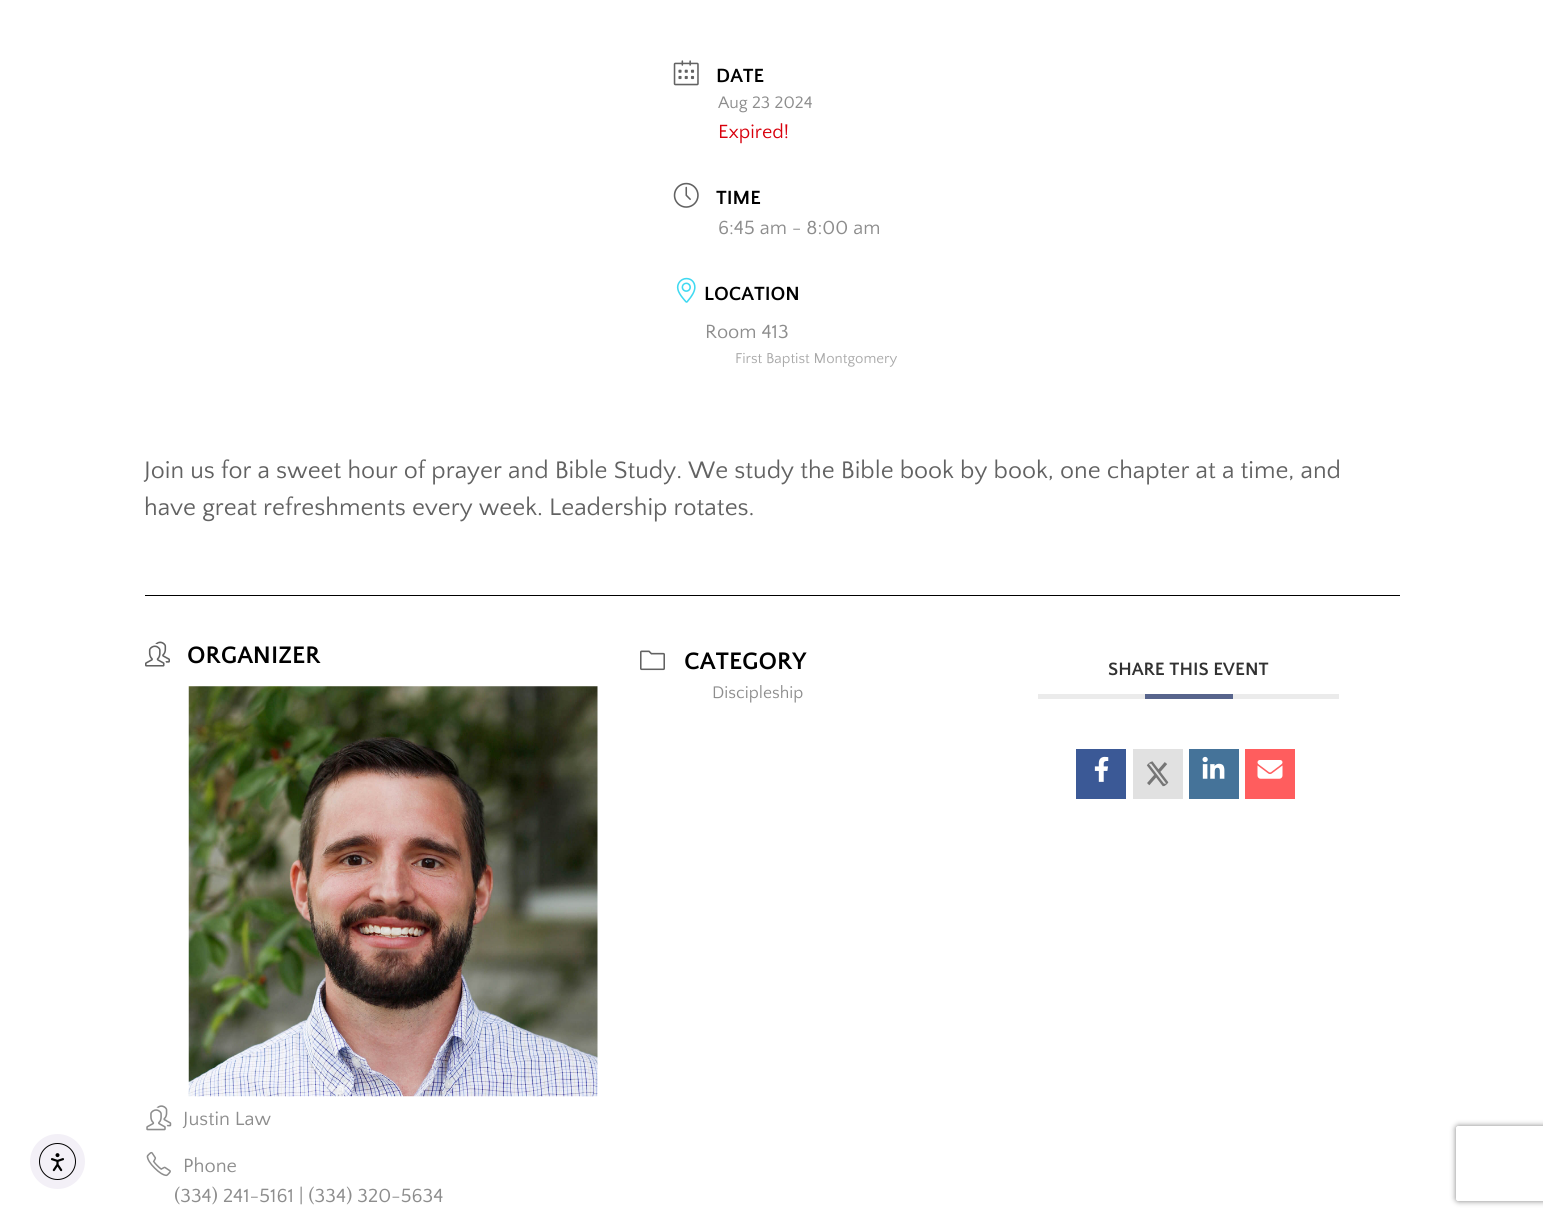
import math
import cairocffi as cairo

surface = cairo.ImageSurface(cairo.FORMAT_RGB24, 1543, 1218)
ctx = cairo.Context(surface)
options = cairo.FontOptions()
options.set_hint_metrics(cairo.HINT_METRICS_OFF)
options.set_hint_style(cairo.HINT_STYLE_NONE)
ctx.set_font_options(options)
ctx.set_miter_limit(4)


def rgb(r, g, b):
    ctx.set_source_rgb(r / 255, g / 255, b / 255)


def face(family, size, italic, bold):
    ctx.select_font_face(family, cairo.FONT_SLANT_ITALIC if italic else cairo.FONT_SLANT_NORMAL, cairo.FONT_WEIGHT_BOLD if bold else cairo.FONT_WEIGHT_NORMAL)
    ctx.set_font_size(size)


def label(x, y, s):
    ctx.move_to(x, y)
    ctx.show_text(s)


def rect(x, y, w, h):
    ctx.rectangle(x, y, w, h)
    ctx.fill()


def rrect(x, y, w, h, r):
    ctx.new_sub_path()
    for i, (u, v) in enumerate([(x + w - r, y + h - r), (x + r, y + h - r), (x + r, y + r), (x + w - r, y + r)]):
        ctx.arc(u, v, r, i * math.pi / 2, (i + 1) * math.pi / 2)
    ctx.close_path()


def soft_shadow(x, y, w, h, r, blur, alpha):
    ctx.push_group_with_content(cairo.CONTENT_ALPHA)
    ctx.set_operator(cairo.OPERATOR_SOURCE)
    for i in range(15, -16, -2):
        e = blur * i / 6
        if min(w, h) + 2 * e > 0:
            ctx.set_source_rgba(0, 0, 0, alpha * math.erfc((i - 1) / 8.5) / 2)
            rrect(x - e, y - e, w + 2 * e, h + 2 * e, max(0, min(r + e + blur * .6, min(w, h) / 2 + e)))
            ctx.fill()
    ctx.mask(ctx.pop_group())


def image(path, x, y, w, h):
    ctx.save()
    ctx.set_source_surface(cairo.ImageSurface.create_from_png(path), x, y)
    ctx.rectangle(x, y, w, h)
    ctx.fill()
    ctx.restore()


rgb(255, 255, 255)
ctx.paint()
rgb(243, 240, 247)
ctx.arc(57.5, 1161.5, 27.5, 0, 2 * math.pi)
ctx.fill()
ctx.arc(57.5, 1161.5, 18, 0, 2 * math.pi)
rgb(0, 0, 0)
ctx.set_line_width(1)
ctx.stroke()
image('image0.png', 51, 1153, 13, 19)
image('image1.png', 673, 60, 26, 26)
face('Quattrocento Sans', 20, 0, 1)
label(716, 82, 'DATE')
face('Quattrocento Sans', 17.5, 0, 0)
rgb(141, 141, 141)
label(718, 108, 'Aug 23 2024')
face('Quattrocento Sans', 20, 0, 0)
rgb(216, 0, 12)
label(718, 138, 'Expired!')
image('image2.png', 673, 182, 26, 26)
face('Quattrocento Sans', 20, 0, 1)
rgb(0, 0, 0)
label(716, 204, 'TIME')
face('Quattrocento Sans', 20, 0, 0)
rgb(141, 141, 141)
label(718, 234, '6:45 am - 8:00 am')
image('image3.png', 676, 277, 20, 26)
face('Quattrocento Sans', 20, 0, 1)
rgb(0, 0, 0)
label(704, 300, 'LOCATION')
face('Quattrocento Sans', 20, 0, 0)
rgb(141, 141, 141)
label(705, 338, 'Room 413')
face('Quattrocento Sans', 15, 0, 0)
rgb(169, 169, 169)
label(735, 363, 'First Baptist Montgomery')
face('Quattrocento Sans', 25, 0, 0)
rgb(98, 98, 98)
label(144, 478, 'Join us for a sweet hour of prayer and Bible Study. We study the Bible book by book, one chapter at a time, and')
label(144, 515, 'have great refreshments every week. Leadership rotates.')
rgb(0, 0, 0)
rect(145, 595, 1255, 1)
image('image4.png', 145, 641, 25, 26)
face('Quattrocento Sans', 25, 0, 1)
label(187, 663, 'ORGANIZER')
image('image5.png', 188, 686, 410, 411)
image('image6.png', 146, 1105, 26, 26)
face('Quattrocento Sans', 20, 0, 0)
rgb(141, 141, 141)
label(183, 1125, 'Justin Law')
image('image7.png', 146, 1151, 25, 26)
label(183, 1172, 'Phone')
label(174, 1202, '(334) 241-5161 | (334) 320-5634')
image('image8.png', 640, 650, 25, 21)
face('Quattrocento Sans', 25, 0, 1)
rgb(0, 0, 0)
label(684, 669, 'CATEGORY')
face('Quattrocento Sans', 17.5, 0, 0)
rgb(141, 141, 141)
label(712, 698, 'Discipleship')
rgb(235, 235, 235)
rect(1038, 694, 301, 5)
face('Quattrocento Sans', 18.75, 0, 1)
rgb(49, 49, 49)
label(1108, 675, 'SHARE THIS EVENT')
rgb(87, 100, 140)
rect(1145, 694, 88, 5)
rgb(59, 89, 150)
rect(1076, 749, 50, 50)
image('image9.png', 1094, 756, 15, 26)
rgb(225, 225, 225)
rect(1133, 749, 50, 50)
image('image10.png', 1146, 761, 23, 26)
rgb(69, 115, 153)
rect(1189, 749, 50, 50)
image('image11.png', 1202, 756, 23, 23)
rgb(255, 93, 94)
rect(1245, 749, 50, 50)
image('image12.png', 1257, 760, 26, 19)
ctx.save()
ctx.set_fill_rule(cairo.FILL_RULE_EVEN_ODD)
ctx.new_path()
ctx.move_to(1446, 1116)
ctx.line_to(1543, 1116)
ctx.line_to(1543, 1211)
ctx.line_to(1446, 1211)
ctx.close_path()
ctx.move_to(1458.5, 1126)
ctx.line_to(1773.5, 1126)
ctx.curve_to(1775, 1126, 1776, 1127, 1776, 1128.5)
ctx.line_to(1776, 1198.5)
ctx.curve_to(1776, 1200, 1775, 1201, 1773.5, 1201)
ctx.line_to(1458.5, 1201)
ctx.curve_to(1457, 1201, 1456, 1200, 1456, 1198.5)
ctx.line_to(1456, 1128.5)
ctx.curve_to(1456, 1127, 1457, 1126, 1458.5, 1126)
ctx.close_path()
ctx.clip()
rgb(128, 128, 128)
soft_shadow(1456, 1126, 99, 75, 2.5, 3, 1)
ctx.restore()
surface.write_to_png('render.png')
